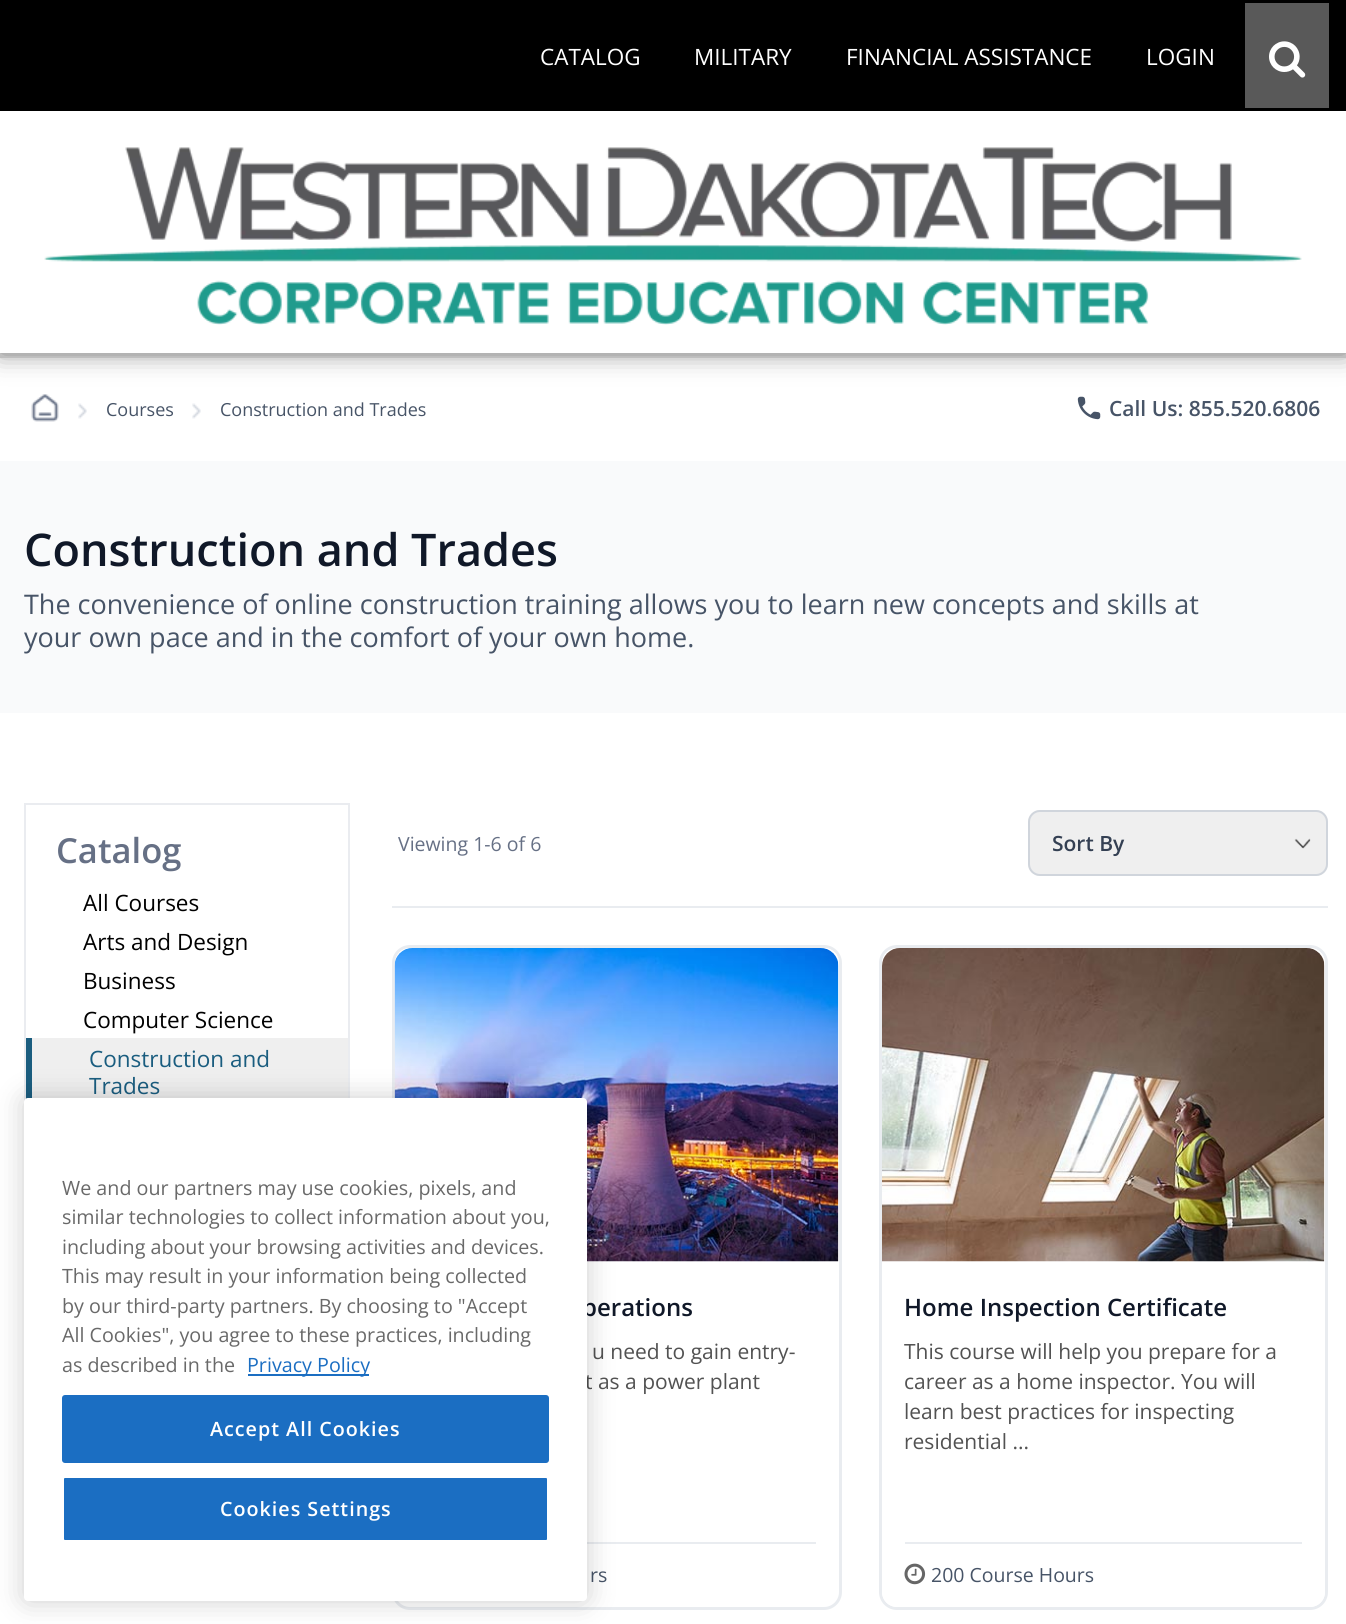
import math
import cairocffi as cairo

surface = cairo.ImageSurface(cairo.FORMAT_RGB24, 1346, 1624)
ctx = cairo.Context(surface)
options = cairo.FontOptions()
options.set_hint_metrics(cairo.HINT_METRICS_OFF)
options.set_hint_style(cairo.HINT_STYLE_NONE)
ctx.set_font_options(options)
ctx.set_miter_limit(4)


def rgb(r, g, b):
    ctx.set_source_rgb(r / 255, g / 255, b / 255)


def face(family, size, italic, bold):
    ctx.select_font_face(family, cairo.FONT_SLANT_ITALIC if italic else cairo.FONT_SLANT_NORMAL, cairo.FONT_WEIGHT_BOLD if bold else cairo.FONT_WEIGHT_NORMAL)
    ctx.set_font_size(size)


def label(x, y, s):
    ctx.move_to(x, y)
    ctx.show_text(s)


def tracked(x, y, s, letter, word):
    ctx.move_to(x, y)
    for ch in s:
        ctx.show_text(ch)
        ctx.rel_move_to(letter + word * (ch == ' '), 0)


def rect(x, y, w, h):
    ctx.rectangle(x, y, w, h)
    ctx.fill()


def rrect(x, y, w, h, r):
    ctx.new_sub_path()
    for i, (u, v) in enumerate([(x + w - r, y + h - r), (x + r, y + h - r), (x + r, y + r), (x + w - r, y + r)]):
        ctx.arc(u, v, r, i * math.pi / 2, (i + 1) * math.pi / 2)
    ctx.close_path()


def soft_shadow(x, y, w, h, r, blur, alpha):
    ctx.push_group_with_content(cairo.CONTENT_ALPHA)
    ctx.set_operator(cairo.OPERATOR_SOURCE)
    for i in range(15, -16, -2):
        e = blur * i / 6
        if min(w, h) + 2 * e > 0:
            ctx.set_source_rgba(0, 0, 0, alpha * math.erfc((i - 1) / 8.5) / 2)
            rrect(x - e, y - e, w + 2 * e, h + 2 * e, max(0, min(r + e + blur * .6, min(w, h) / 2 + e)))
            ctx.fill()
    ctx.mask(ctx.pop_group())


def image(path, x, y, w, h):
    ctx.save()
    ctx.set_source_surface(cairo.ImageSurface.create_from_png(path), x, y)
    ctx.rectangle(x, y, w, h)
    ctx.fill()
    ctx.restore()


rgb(255, 255, 255)
ctx.paint()
rgb(0, 0, 0)
rect(0, 0, 1346, 111)
rgb(226, 226, 226)
rect(0, 353, 1346, 5)
face('Open Sans', 22.5, 0, 0)
rgb(255, 255, 255)
label(540, 65, 'CATALOG')
label(694, 65, 'MILITARY')
label(846, 65, 'FINANCIAL ASSISTANCE')
label(1146, 65, 'LOGIN')
rgb(0, 0, 0)
soft_shadow(0, 113, 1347, 241, 0, 13, 0.42)
rgb(89, 89, 89)
rect(1245, 3, 84, 105)
image('image0.png', 1269, 41, 37, 37)
rgb(255, 255, 255)
rect(0, 111, 1346, 242)
image('image1.png', 44, 147, 1258, 178)
image('image2.png', 31, 394, 28, 28)
image('image3.png', 78, 403, 9, 16)
face('Open Sans', 18, 0, 0)
rgb(71, 84, 103)
label(106, 416, 'Courses')
image('image3.png', 192, 403, 9, 16)
label(220, 416, 'Construction and Trades')
image('image4.png', 1077, 396, 24, 24)
face('Open Sans SemiBold', 21, 0, 0)
label(1109, 416, 'Call Us: 855.520.6806')
rgb(249, 250, 251)
rect(0, 461, 1346, 252)
face('Open Sans SemiBold', 45, 0, 0)
rgb(16, 24, 40)
label(24, 566, 'Construction and Trades')
face('Open Sans', 27, 0, 0)
rgb(71, 84, 103)
label(24, 614, 'The convenience of online construction training allows you to learn new concepts and skills at')
label(24, 647, 'your own pace and in the comfort of your own home.')
ctx.rectangle(25, 804, 324, 665)
rgb(234, 236, 240)
ctx.stroke()
face('Open Sans SemiBold', 34.5, 0, 0)
rgb(102, 112, 133)
label(56, 863, 'Catalog')
face('Open Sans', 22.5, 0, 0)
rgb(0, 0, 0)
label(83, 911, 'All Courses')
label(83, 950, 'Arts and Design')
label(83, 989, 'Business')
label(83, 1028, 'Computer Science')
rgb(239, 239, 239)
rect(32, 1038, 316, 60)
rgb(26, 93, 127)
rect(26, 1038, 6, 66)
label(89, 1067, 'Construction and')
label(89, 1094, 'Trades')
rgb(233, 236, 240)
rect(392, 906, 936, 2)
face('Open Sans', 19.5, 0, 0)
rgb(102, 112, 133)
label(398, 851, 'Viewing 1-6 of 6')
rgb(239, 239, 239)
rrect(1028, 810, 300, 66, 12)
ctx.fill()
image('image5.png', 1294, 838, 17, 11)
rrect(1029, 811, 298, 64, 11)
rgb(208, 213, 220)
ctx.stroke()
face('Open Sans SemiBold', 21, 0, 0)
rgb(52, 64, 83)
label(1052, 851, 'Sort By')
rrect(393.5, 946.5, 447, 662, 16.5)
rgb(233, 236, 240)
ctx.set_line_width(3)
ctx.stroke()
rgb(255, 255, 255)
ctx.new_path()
ctx.move_to(410, 948)
ctx.line_to(824, 948)
ctx.curve_to(832.5, 948, 839, 954.5, 839, 963)
ctx.line_to(839, 1577)
ctx.line_to(395, 1577)
ctx.line_to(395, 963)
ctx.curve_to(395, 954.5, 401.5, 948, 410, 948)
ctx.close_path()
ctx.fill()
image('image6.png', 394, 948, 445, 314)
face('Open Sans SemiBold', 24, 0, 0)
rgb(16, 24, 40)
label(582, 1316, 'perations')
face('Open Sans', 21, 0, 0)
rgb(82, 82, 82)
label(592, 1359, 'u need to gain entry-')
label(585, 1389, 't as a power plant')
rgb(233, 236, 240)
rect(587, 1542, 229, 2)
face('Open Sans', 19.5, 0, 0)
rgb(71, 84, 103)
label(590, 1582, 'rs')
rrect(880.5, 946.5, 446, 662, 16.5)
rgb(233, 236, 240)
ctx.stroke()
rgb(255, 255, 255)
rrect(882, 948, 443, 659, 15)
ctx.fill()
image('image7.png', 882, 948, 443, 314)
face('Open Sans SemiBold', 24, 0, 0)
rgb(16, 24, 40)
label(904, 1316, 'Home Inspection Certificate')
face('Open Sans', 21, 0, 0)
rgb(82, 82, 82)
label(904, 1359, 'This course will help you prepare for a')
label(904, 1389, 'career as a home inspector. You will')
label(904, 1419, 'learn best practices for inspecting')
label(904, 1449, 'residential ...')
rgb(233, 236, 240)
rect(905, 1542, 397, 2)
image('image8.png', 904, 1563, 22, 22)
face('Open Sans', 19.5, 0, 0)
rgb(71, 84, 103)
label(931, 1582, '200 Course Hours')
rgb(0, 0, 0)
soft_shadow(24, 1098, 563, 503, 4, 13.5, 0.2)
rgb(255, 255, 255)
rrect(24, 1098, 563, 503, 4)
ctx.fill()
face('Open Sans', 19.7, 0, 0)
rgb(105, 105, 105)
label(62, 1195, 'We and our partners may use cookies, pixels, and')
label(62, 1224, 'similar technologies to collect information about you,')
label(62, 1254, 'including about your browsing activities and devices.')
label(62, 1283, 'This may result in your information being collected')
label(62, 1313, 'by our third-party partners. By choosing to "Accept')
label(62, 1342, 'All Cookies", you agree to these practices, including')
label(62, 1372, 'as described in the')
rgb(27, 110, 194)
rect(248, 1374, 121, 2)
label(247, 1372, 'Privacy Policy')
rrect(63, 1396, 485, 66, 2)
ctx.fill_preserve()
ctx.set_line_width(2)
ctx.stroke()
face('Open Sans SemiBold', 19.7, 0, 0)
rgb(255, 255, 255)
tracked(210, 1436, 'Accept All Cookies', 1, 0)
rgb(27, 110, 194)
rrect(63, 1477, 485, 64, 2)
ctx.fill_preserve()
rgb(255, 255, 255)
ctx.stroke()
tracked(220, 1516, 'Cookies Settings', 1, 0)
surface.write_to_png('render.png')
